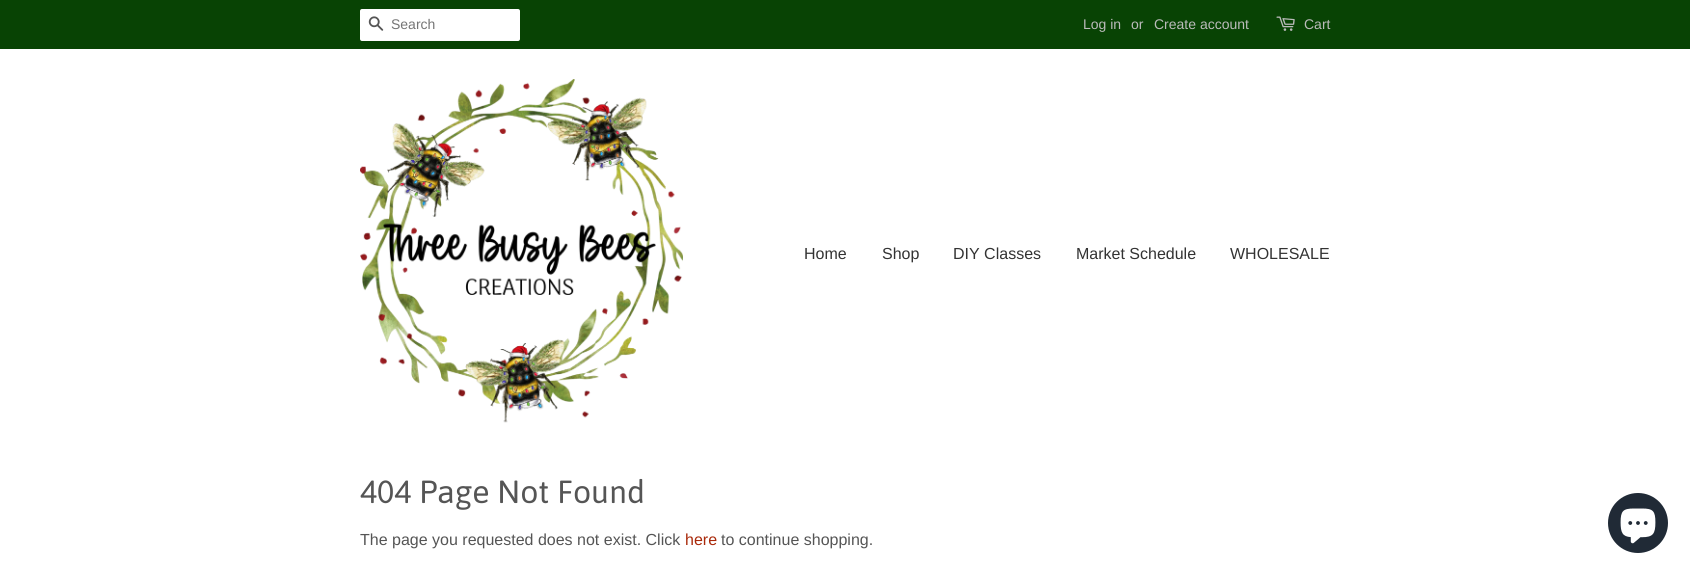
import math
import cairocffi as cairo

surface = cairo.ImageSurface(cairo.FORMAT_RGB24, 1690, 574)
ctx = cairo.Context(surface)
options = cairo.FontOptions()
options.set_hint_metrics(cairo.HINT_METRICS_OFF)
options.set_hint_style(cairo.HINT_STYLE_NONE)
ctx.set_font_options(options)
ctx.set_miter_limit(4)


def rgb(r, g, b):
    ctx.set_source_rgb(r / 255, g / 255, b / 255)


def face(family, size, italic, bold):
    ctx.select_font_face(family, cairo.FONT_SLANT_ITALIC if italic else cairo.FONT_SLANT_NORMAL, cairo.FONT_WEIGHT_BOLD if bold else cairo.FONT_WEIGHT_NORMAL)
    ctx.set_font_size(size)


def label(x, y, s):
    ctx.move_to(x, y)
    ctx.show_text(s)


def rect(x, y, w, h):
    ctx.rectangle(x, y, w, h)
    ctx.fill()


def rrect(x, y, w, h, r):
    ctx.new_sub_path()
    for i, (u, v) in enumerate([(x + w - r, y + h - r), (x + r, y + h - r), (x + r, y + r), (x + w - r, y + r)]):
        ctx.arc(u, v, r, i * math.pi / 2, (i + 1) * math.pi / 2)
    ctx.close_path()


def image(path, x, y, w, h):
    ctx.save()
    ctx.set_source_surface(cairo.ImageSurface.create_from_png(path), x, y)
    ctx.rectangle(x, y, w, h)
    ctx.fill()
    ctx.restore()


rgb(255, 255, 255)
ctx.paint()
rgb(8, 67, 4)
rect(0, 0, 1690, 49)
rgb(255, 255, 255)
rrect(360, 9, 160, 32, 2)
ctx.fill()
image('image0.png', 368, 16, 16, 15)
face('Liberation Sans', 14, 0, 0)
rgb(117, 117, 117)
label(391, 29, 'Search')
rgb(187, 187, 187)
label(1083, 29, 'Log in')
label(1131, 29, 'or')
label(1154, 29, 'Create account')
image('image1.png', 1276, 16, 19, 15)
label(1304, 29, 'Cart')
image('image2.png', 360, 79, 323, 344)
face('Liberation Sans', 16, 0, 0)
rgb(51, 51, 51)
label(804, 259, 'Home')
label(882, 259, 'Shop')
label(953, 259, 'DIY Classes')
label(1076, 259, 'Market Schedule')
label(1230, 259, 'WHOLESALE')
face('Asap', 32, 0, 0)
rgb(85, 85, 85)
label(360, 503, '404 Page Not Found')
face('Liberation Sans', 16, 0, 0)
label(360, 545, 'The page you requested does not exist. Click')
rgb(169, 41, 10)
label(685, 545, 'here')
rgb(85, 85, 85)
label(721, 545, 'to continue shopping.')
rgb(32, 42, 54)
ctx.new_path()
ctx.arc(1638, 523, 30, 0, 2 * math.pi)
ctx.fill()
image('image3.png', 1620, 508, 36, 36)
surface.write_to_png('render.png')
